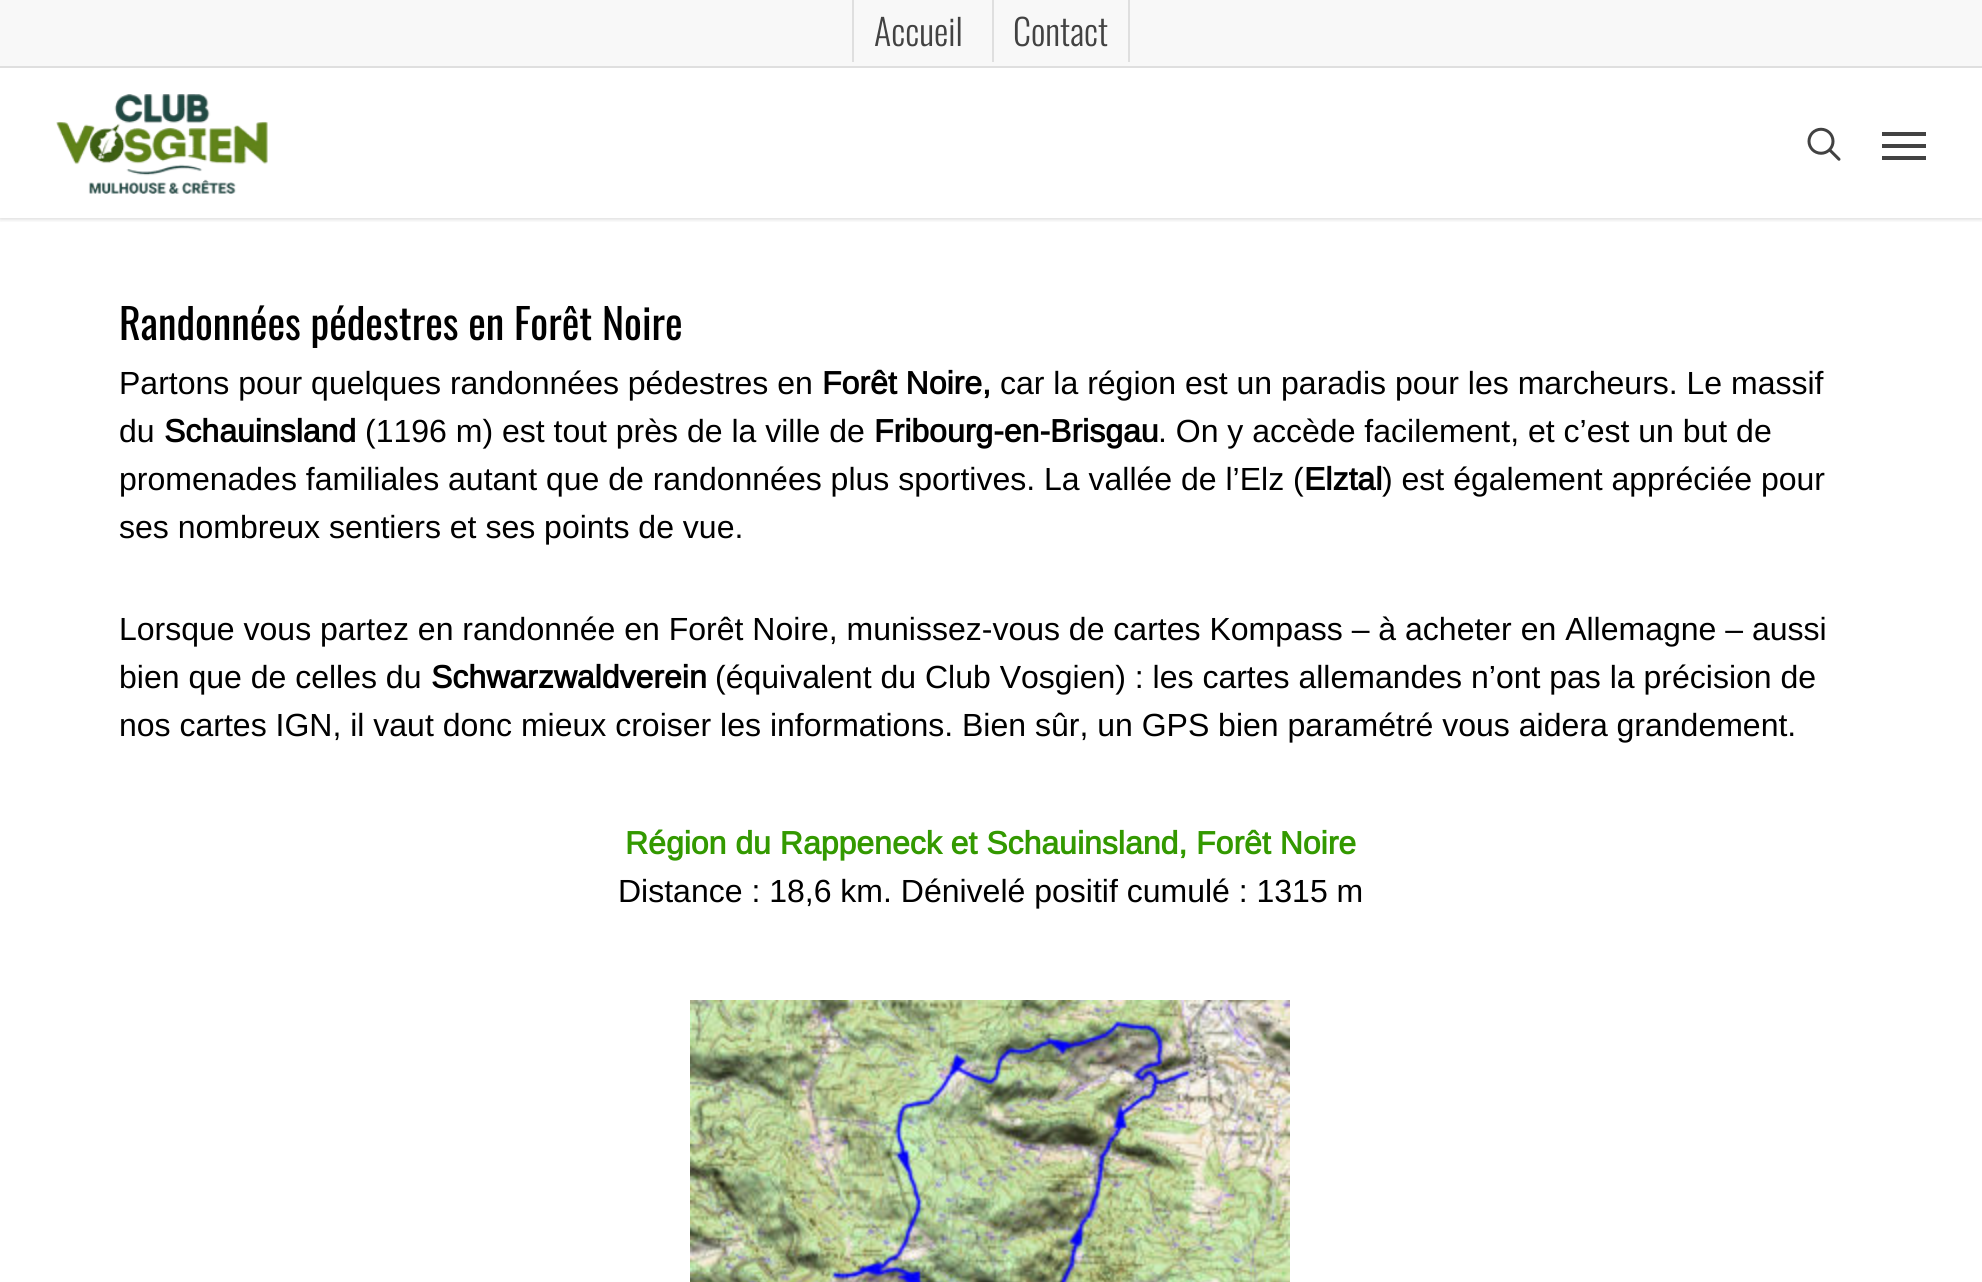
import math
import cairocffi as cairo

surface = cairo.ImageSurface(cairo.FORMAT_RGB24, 1982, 1282)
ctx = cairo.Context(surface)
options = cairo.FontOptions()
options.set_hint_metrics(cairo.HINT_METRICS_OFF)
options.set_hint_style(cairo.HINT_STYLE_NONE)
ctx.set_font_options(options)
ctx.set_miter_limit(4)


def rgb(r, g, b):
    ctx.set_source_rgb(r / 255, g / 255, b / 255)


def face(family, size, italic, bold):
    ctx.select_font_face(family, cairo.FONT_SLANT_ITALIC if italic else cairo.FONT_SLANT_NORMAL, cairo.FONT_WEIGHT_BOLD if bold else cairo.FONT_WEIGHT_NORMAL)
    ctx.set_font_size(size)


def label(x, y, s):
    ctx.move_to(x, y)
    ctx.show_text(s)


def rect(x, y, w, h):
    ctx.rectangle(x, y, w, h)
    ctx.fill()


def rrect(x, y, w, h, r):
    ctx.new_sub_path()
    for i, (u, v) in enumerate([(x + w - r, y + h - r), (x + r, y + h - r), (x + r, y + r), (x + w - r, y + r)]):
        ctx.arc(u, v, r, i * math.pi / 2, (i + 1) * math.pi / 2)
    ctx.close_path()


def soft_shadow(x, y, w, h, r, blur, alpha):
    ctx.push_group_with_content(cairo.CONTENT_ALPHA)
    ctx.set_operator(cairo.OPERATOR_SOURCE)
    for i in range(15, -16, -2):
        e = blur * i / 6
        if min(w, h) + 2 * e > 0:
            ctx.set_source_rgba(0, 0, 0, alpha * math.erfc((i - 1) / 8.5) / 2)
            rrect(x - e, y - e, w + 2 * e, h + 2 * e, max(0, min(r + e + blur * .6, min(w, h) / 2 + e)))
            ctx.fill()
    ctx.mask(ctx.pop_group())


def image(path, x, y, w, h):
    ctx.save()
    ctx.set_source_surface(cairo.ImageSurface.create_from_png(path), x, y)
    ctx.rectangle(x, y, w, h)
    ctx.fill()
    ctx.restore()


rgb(255, 255, 255)
ctx.paint()
ctx.save()
ctx.rectangle(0, 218, 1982, 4)
ctx.clip()
rgb(0, 0, 0)
soft_shadow(0, 0, 1982, 218, 0, 3, 0.22)
ctx.restore()
rgb(248, 248, 248)
rect(0, 0, 1982, 66)
rgb(223, 223, 223)
rect(0, 66, 1982, 2)
rect(852, 0, 2, 62)
face('Oswald Light', 36, 0, 0)
rgb(66, 66, 66)
label(874, 46, 'Accueil')
rgb(223, 223, 223)
rect(1128, 0, 2, 62)
rect(992, 0, 2, 62)
rgb(66, 66, 66)
label(1013, 46, 'Contact')
image('image0.png', 56, 94, 212, 100)
image('image1.png', 1807, 127, 34, 34)
rect(1882, 132, 44, 4)
rect(1882, 156, 44, 4)
rect(1882, 144, 44, 4)
face('Oswald', 42, 0, 0)
rgb(0, 0, 0)
label(119, 340, 'Randonnées pédestres en Forêt Noire')
face('Arimo', 32, 0, 0)
label(119, 394, 'Partons pour quelques randonnées pédestres en')
face('Arimo', 32, 0, 1)
label(822, 394, 'Forêt Noire,')
face('Arimo', 32, 0, 0)
label(1000, 394, 'car la région est un paradis pour les marcheurs. Le massif')
label(119, 442, 'du')
face('Arimo', 32, 0, 1)
label(164, 442, 'Schauinsland')
face('Arimo', 32, 0, 0)
label(365, 442, '(1196 m) est tout près de la ville de')
face('Arimo', 32, 0, 1)
label(874, 442, 'Fribourg-en-Brisgau')
face('Arimo', 32, 0, 0)
label(1158, 442, '. On y accède facilement, et c’est un but de')
label(119, 490, 'promenades familiales autant que de randonnées plus sportives. La vallée de l’Elz (')
face('Arimo', 32, 0, 1)
label(1304, 490, 'Elztal')
face('Arimo', 32, 0, 0)
label(1382, 490, ') est également appréciée pour')
label(119, 538, 'ses nombreux sentiers et ses points de vue.')
label(119, 640, 'Lorsque vous partez en randonnée en Forêt Noire, munissez-vous de cartes Kompass – à acheter en Allemagne – aussi')
label(119, 688, 'bien que de celles du')
face('Arimo', 32, 0, 1)
label(431, 688, 'Schwarzwaldverein')
face('Arimo', 32, 0, 0)
label(715, 688, '(équivalent du Club Vosgien) : les cartes allemandes n’ont pas la précision de')
label(119, 736, 'nos cartes IGN, il vaut donc mieux croiser les informations. Bien sûr, un GPS bien paramétré vous aidera grandement.')
face('Arimo', 32, 0, 1)
rgb(51, 153, 0)
label(625, 854, 'Région du Rappeneck et Schauinsland, Forêt Noire')
face('Arimo', 32, 0, 0)
rgb(0, 0, 0)
label(618, 902, 'Distance : 18,6 km. Dénivelé positif cumulé : 1315 m')
image('image2.png', 690, 1000, 600, 282)
surface.write_to_png('render.png')
